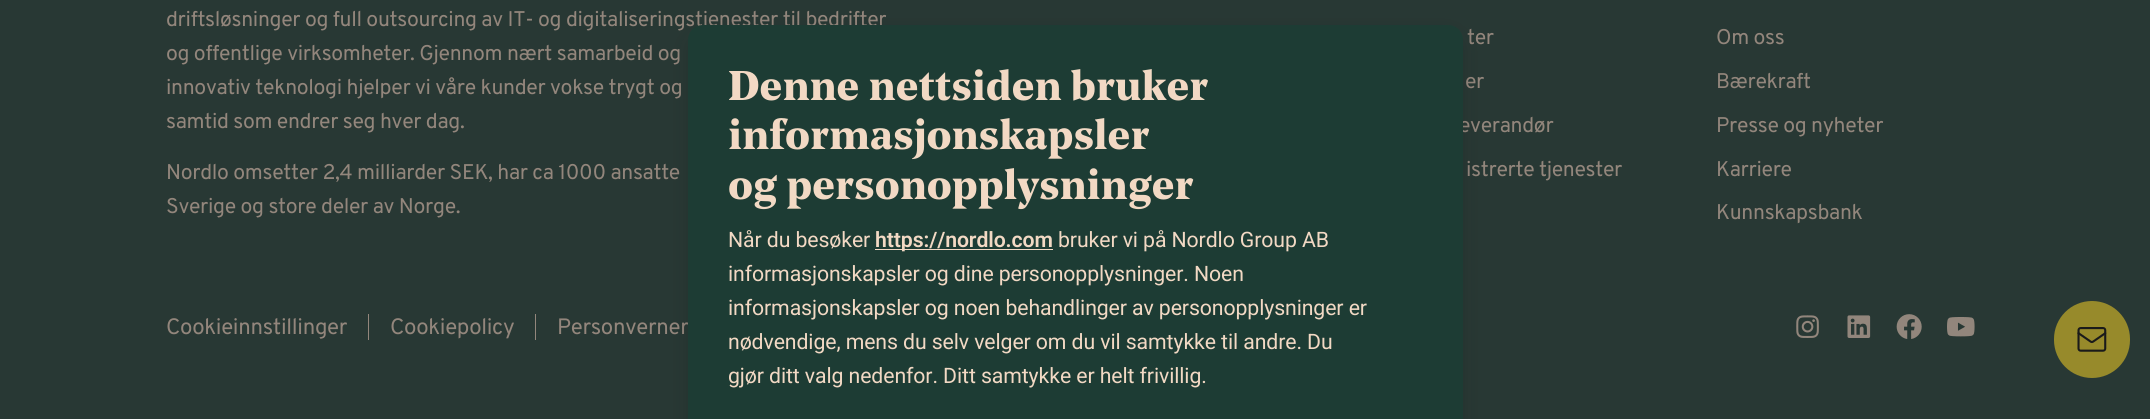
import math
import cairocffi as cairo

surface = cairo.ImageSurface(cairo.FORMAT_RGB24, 2150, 419)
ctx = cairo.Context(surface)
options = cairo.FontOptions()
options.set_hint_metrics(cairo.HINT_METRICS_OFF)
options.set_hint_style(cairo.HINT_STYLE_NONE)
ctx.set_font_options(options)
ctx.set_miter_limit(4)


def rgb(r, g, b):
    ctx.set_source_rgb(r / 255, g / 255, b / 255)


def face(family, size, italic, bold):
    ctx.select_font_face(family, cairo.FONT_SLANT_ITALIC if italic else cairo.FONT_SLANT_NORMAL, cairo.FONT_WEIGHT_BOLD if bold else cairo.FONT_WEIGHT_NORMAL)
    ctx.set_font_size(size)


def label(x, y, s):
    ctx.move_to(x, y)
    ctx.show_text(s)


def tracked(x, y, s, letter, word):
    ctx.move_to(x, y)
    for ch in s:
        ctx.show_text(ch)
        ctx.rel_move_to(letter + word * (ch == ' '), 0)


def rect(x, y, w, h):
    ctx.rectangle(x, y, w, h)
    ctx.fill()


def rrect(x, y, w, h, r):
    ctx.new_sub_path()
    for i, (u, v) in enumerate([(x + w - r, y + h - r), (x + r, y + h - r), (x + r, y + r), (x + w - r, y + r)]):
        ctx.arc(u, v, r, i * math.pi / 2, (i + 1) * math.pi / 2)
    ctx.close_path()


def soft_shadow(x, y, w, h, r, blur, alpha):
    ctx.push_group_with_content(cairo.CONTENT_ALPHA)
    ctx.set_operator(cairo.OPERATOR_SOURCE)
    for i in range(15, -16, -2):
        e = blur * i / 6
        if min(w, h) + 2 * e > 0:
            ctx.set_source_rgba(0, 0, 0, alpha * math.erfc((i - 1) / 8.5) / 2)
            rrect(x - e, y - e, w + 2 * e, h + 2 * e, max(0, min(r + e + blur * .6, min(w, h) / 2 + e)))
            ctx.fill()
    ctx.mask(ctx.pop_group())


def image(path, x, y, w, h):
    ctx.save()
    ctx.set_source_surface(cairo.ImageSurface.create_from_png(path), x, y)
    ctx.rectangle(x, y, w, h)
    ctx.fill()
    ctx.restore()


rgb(40, 56, 52)
ctx.paint()
face('Overpass', 21.25, 0, 0)
rgb(147, 134, 124)
tracked(166, 26, 'driftsløsninger og full outsourcing av IT- og digitaliseringstjenester til bedrifter', -0.32, 0)
tracked(166, 60, 'og offentlige virksomheter. Gjennom nært samarbeid og', -0.32, 0)
tracked(166, 94, 'innovativ teknologi hjelper vi våre kunder vokse trygt og', -0.32, 0)
tracked(166, 128, 'samtid som endrer seg hver dag.', -0.32, 0)
tracked(166, 179, 'Nordlo omsetter 2,4 milliarder SEK, har ca 1000 ansatte', -0.32, 0)
tracked(166, 213, 'Sverige og store deler av Norge.', -0.32, 0)
tracked(1467, 44, 'ter', -0.32, 0)
tracked(1465, 88, 'er', -0.32, 0)
tracked(1459, 132, 'everandør', -0.32, 0)
tracked(1466, 176, 'istrerte tjenester', -0.32, 0)
tracked(1716, 44, 'Om oss', -0.32, 0)
tracked(1716, 88, 'Bærekraft', -0.32, 0)
tracked(1716, 132, 'Presse og nyheter', -0.32, 0)
tracked(1716, 176, 'Karriere', -0.32, 0)
tracked(1716, 219, 'Kunnskapsbank', -0.32, 0)
face('Overpass', 22.25, 0, 0)
tracked(166, 334, 'Cookieinnstillinger', -0.3, 0)
rect(368, 314, 1, 26)
tracked(390, 334, 'Cookiepolicy', -0.3, 0)
rect(535, 314, 1, 26)
tracked(557, 334, 'Personverner', -0.3, 0)
image('image0.png', 1796, 315, 23, 23)
image('image1.png', 1847, 315, 24, 23)
image('image2.png', 1896, 314, 26, 25)
image('image3.png', 1947, 317, 28, 20)
rgb(151, 138, 43)
rrect(2054, 301, 76, 77, 38)
ctx.fill()
image('image4.png', 2077, 327, 30, 25)
rgb(17, 17, 17)
soft_shadow(688, 33, 775, 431, 15, 10, 0.15)
rgb(29, 60, 52)
ctx.new_path()
ctx.move_to(703, 25)
ctx.line_to(1448, 25)
ctx.curve_to(1456.5, 25, 1463, 31.5, 1463, 40)
ctx.line_to(1463, 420)
ctx.line_to(688, 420)
ctx.line_to(688, 40)
ctx.curve_to(688, 31.5, 694.5, 25, 703, 25)
ctx.close_path()
ctx.fill()
face('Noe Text', 41.25, 0, 1)
rgb(242, 217, 196)
label(728, 100, 'Denne nettsiden bruker')
label(728, 149, 'informasjonskapsler')
label(728, 199, 'og personopplysninger')
face('Roboto', 21.25, 0, 0)
tracked(728, 247, 'Når du besøker', -0.1, 0)
rect(875, 249, 178, 1)
face('Roboto SemiBold', 21.25, 0, 0)
tracked(875, 247, 'https://nordlo.com', -0.1, 0)
face('Roboto', 21.25, 0, 0)
tracked(1058, 247, 'bruker vi på Nordlo Group AB', -0.1, 0)
tracked(728, 281, 'informasjonskapsler og dine personopplysninger. Noen', -0.1, 0)
tracked(728, 315, 'informasjonskapsler og noen behandlinger av personopplysninger er', -0.1, 0)
tracked(728, 349, 'nødvendige, mens du selv velger om du vil samtykke til andre. Du', -0.1, 0)
tracked(728, 383, 'gjør ditt valg nedenfor. Ditt samtykke er helt frivillig.', -0.1, 0)
surface.write_to_png('render.png')
